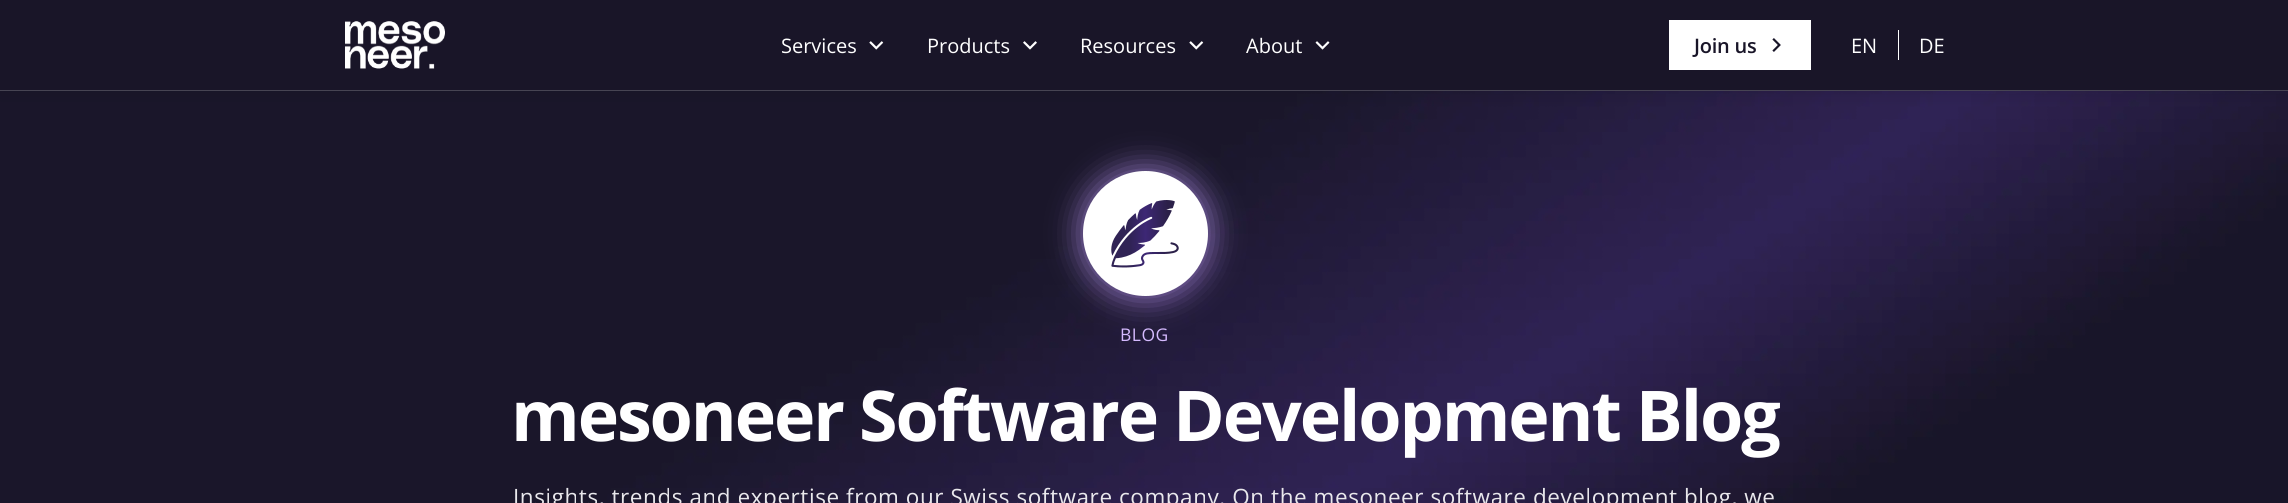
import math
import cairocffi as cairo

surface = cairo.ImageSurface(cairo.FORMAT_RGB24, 2288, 503)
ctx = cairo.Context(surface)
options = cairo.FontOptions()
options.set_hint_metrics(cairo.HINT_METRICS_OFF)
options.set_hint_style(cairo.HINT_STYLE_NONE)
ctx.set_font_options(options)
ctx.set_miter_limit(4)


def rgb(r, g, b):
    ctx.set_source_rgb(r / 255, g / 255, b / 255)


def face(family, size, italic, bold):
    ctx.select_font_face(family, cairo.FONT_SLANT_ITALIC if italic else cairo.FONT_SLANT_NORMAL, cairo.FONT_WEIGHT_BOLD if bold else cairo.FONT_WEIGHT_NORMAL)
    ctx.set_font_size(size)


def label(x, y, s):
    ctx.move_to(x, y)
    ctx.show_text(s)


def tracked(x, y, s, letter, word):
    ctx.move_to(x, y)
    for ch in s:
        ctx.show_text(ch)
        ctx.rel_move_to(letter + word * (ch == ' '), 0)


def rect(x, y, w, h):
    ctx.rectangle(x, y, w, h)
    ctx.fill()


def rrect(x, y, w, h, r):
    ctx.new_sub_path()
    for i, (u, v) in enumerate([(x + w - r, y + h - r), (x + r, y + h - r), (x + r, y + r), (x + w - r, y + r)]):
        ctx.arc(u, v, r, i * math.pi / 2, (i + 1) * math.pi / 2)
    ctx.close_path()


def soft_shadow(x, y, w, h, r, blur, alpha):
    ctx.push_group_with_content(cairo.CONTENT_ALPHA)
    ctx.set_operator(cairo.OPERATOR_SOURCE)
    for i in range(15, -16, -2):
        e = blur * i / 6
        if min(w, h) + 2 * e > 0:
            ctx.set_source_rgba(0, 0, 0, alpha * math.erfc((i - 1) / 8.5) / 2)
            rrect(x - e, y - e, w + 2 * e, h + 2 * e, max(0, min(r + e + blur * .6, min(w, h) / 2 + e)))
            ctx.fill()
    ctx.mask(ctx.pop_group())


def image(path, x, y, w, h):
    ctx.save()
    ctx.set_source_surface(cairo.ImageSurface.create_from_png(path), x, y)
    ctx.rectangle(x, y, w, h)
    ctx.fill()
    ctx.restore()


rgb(255, 255, 255)
ctx.paint()
image('image5.png', 0, 91, 2288, 412)
rgb(0, 0, 0)
soft_shadow(0, 5, 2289, 91, 0, 7.5, 0.08)
rgb(25, 21, 40)
rect(0, 0, 2288, 90)
rgb(71, 68, 83)
rect(0, 90, 2288, 1)
image('image0.png', 345, 21, 100, 48)
face('Open Sans', 20, 0, 0)
rgb(255, 255, 255)
label(781, 53, 'Services')
image('image1.png', 869, 41, 15, 9)
label(927, 53, 'Products')
image('image2.png', 1023, 41, 14, 9)
label(1080, 53, 'Resources')
image('image1.png', 1189, 41, 15, 9)
label(1246, 53, 'About')
image('image3.png', 1315, 41, 15, 9)
rect(1669, 20, 142, 50)
face('Open Sans SemiBold', 20, 0, 0)
rgb(25, 21, 40)
tracked(1694, 53, 'Join us', -0.25, 0)
image('image4.png', 1772, 38, 9, 14)
rgb(255, 255, 255)
rect(1898, 30, 1, 30)
face('Open Sans', 20, 0, 0)
label(1851, 53, 'EN')
label(1919, 53, 'DE')
rgb(195, 157, 255)
soft_shadow(1078, 166, 135, 135, 67.5, 14, 0.6)
rgb(255, 255, 255)
ctx.arc(1145.5, 233.5, 62.5, 0, 2 * math.pi)
ctx.fill()
image('image6.png', 1111, 200, 68, 68)
face('Open Sans', 17.5, 0, 0)
rgb(213, 186, 255)
tracked(1120, 341, 'BLOG', 0.5, 0)
face('Open Sans', 70, 0, 1)
rgb(255, 255, 255)
tracked(511, 441, 'mesoneer Software Development Blog', -2.1, 0)
face('Open Sans', 22.5, 0, 0)
rgb(233, 232, 236)
tracked(513, 505, 'Insights, trends and expertise from our Swiss software company. On the mesoneer software development blog, we', 0.56, 0)
surface.write_to_png('render.png')
